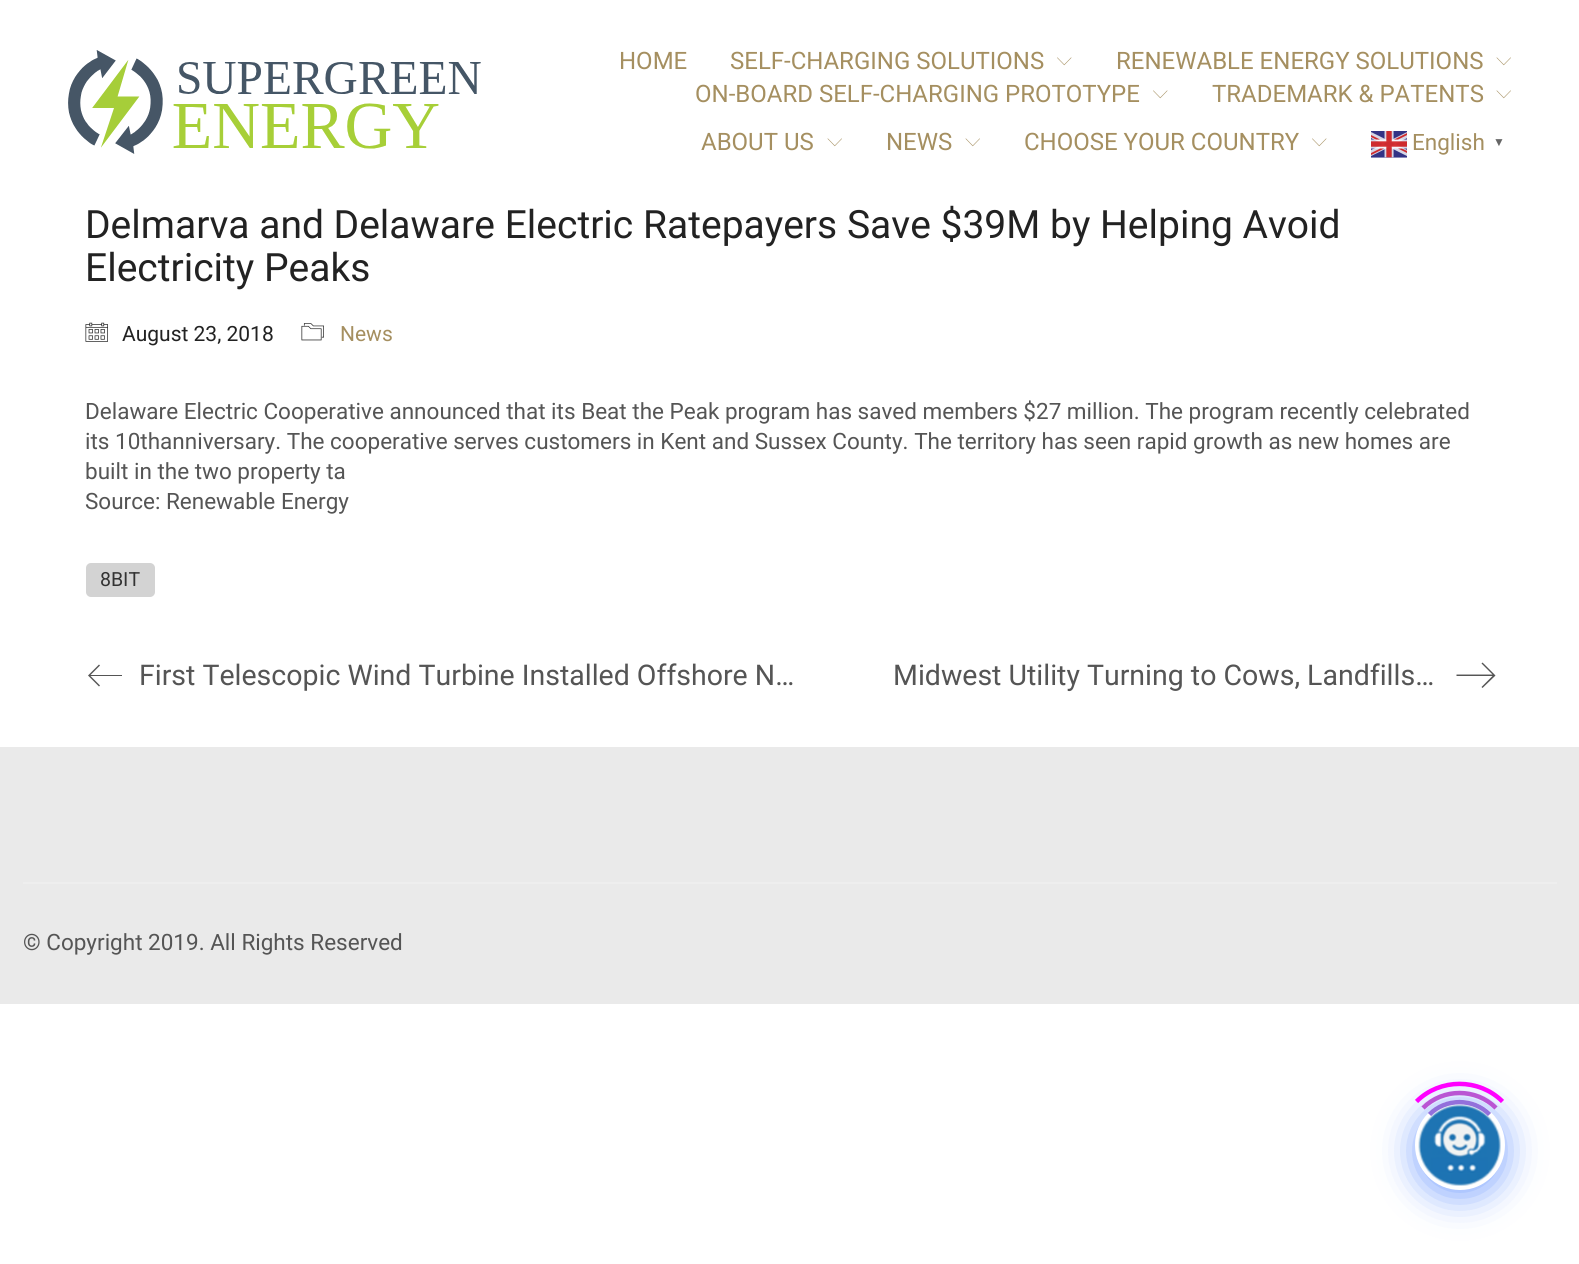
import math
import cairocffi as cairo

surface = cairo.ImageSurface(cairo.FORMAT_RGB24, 1579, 1264)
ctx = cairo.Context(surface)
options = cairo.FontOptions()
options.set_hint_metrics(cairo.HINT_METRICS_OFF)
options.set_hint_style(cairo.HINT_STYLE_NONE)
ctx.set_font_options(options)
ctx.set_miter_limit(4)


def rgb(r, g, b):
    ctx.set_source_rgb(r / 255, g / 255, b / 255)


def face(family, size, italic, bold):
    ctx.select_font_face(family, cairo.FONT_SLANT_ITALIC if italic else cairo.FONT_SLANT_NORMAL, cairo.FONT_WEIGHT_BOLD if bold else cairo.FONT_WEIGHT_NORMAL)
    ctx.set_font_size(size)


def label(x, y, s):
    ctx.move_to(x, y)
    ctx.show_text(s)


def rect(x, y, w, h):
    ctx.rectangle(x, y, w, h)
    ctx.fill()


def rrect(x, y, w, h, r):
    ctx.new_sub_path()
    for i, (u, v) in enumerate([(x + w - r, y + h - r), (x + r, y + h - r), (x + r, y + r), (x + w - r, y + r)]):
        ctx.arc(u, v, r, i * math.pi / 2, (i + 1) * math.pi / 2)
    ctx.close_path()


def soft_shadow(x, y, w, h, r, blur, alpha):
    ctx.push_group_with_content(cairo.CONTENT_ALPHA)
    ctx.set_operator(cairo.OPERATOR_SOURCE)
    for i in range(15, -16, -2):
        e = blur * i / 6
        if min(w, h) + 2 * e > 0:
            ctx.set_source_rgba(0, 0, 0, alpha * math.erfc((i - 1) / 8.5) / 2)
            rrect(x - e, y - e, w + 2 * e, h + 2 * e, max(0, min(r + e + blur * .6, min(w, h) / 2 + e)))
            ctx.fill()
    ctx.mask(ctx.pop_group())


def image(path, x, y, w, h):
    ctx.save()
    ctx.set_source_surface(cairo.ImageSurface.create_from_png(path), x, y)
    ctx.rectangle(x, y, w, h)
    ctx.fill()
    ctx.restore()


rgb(255, 255, 255)
ctx.paint()
image('image0.png', 68, 50, 413, 104)
face('Roboto', 24, 0, 0)
rgb(165, 143, 96)
label(619, 69, 'HOME')
label(730, 69, 'SELF-CHARGING SOLUTIONS')
image('image1.png', 1057, 57, 15, 9)
label(1116, 69, 'RENEWABLE ENERGY SOLUTIONS')
image('image2.png', 1496, 57, 15, 9)
label(695, 102, 'ON-BOARD SELF-CHARGING PROTOTYPE')
image('image1.png', 1153, 90, 15, 9)
label(1212, 102, 'TRADEMARK & PATENTS')
image('image2.png', 1496, 90, 15, 9)
label(701, 150, 'ABOUT US')
image('image2.png', 827, 138, 15, 9)
label(886, 150, 'NEWS')
image('image2.png', 965, 138, 15, 9)
label(1024, 150, 'CHOOSE YOUR COUNTRY')
image('image1.png', 1312, 138, 15, 9)
image('image3.png', 1371, 131, 36, 27)
face('Roboto', 22.5, 0, 0)
label(1412, 150, 'English')
face('Liberation Sans', 12, 0, 1)
rgb(102, 102, 102)
label(1493, 146, '▼')
face('Roboto', 39, 0, 0)
rgb(34, 34, 34)
label(85, 238, 'Delmarva and Delaware Electric Ratepayers Save $39M by Helping Avoid')
label(85, 281, 'Electricity Peaks')
image('image4.png', 85, 322, 23, 20)
face('Roboto', 21, 0, 0)
label(122, 341, 'August 23, 2018')
image('image5.png', 301, 323, 23, 18)
rgb(165, 143, 96)
label(340, 341, 'News')
face('Roboto', 22.5, 0, 0)
rgb(85, 85, 85)
label(85, 419, 'Delaware Electric Cooperative announced that its Beat the Peak program has saved members $27 million. The program recently celebrated')
label(85, 449, 'its 10thanniversary. The cooperative serves customers in Kent and Sussex County. The territory has seen rapid growth as new homes are')
label(85, 479, 'built in the two property ta')
label(85, 509, 'Source: Renewable Energy')
rgb(211, 211, 211)
rrect(86, 563, 69, 34, 5)
ctx.fill()
face('Roboto', 19.5, 0, 0)
rgb(51, 51, 51)
label(100, 586, '8BIT')
rgb(85, 85, 85)
ctx.new_path()
ctx.move_to(122, 675)
ctx.line_to(90.5, 675)
ctx.line_to(100, 665.5)
ctx.line_to(99, 664.5)
ctx.line_to(88, 675.5)
ctx.line_to(99, 686.5)
ctx.line_to(100, 685.5)
ctx.line_to(90.5, 676)
ctx.line_to(122, 676)
ctx.close_path()
ctx.fill()
face('Roboto', 28.5, 0, 0)
label(139, 685, 'First Telescopic Wind Turbine Installed Offshore N…')
label(893, 685, 'Midwest Utility Turning to Cows, Landfills…')
ctx.new_path()
ctx.move_to(1482.5, 662.5)
ctx.line_to(1481.5, 663.5)
ctx.line_to(1492.5, 674.5)
ctx.line_to(1456.5, 674.5)
ctx.line_to(1456.5, 676)
ctx.line_to(1492.5, 676)
ctx.line_to(1481.5, 687)
ctx.line_to(1482.5, 688)
ctx.line_to(1495.5, 675.5)
ctx.close_path()
ctx.fill()
rgb(234, 234, 234)
rect(0, 747, 1579, 257)
rgb(238, 238, 238)
rect(23, 882, 1534, 2)
face('Roboto', 22.5, 0, 0)
rgb(85, 85, 85)
label(23, 950, '© Copyright 2019. All Rights Reserved')
rgb(0, 77, 255)
soft_shadow(1415, 1106, 90, 90, 45, 18, 0.5)
rgb(255, 255, 255)
ctx.arc(1460, 1145, 45, 0, 2 * math.pi)
ctx.fill()
image('image6.png', 1418, 1104, 83, 82)
ctx.new_path()
ctx.move_to(1429.5, 1114.5)
ctx.curve_to(1445.5, 1098, 1473.5, 1098, 1489.5, 1114.5)
rgb(147, 112, 219)
ctx.set_line_width(4.5)
ctx.stroke()
ctx.new_path()
ctx.move_to(1423, 1108)
ctx.curve_to(1443, 1088, 1476, 1088, 1496, 1108)
rgb(186, 85, 211)
ctx.stroke()
ctx.new_path()
ctx.move_to(1416.5, 1101.5)
ctx.curve_to(1440, 1078, 1479, 1078, 1502.5, 1101.5)
rgb(255, 0, 255)
ctx.stroke()
surface.write_to_png('render.png')
